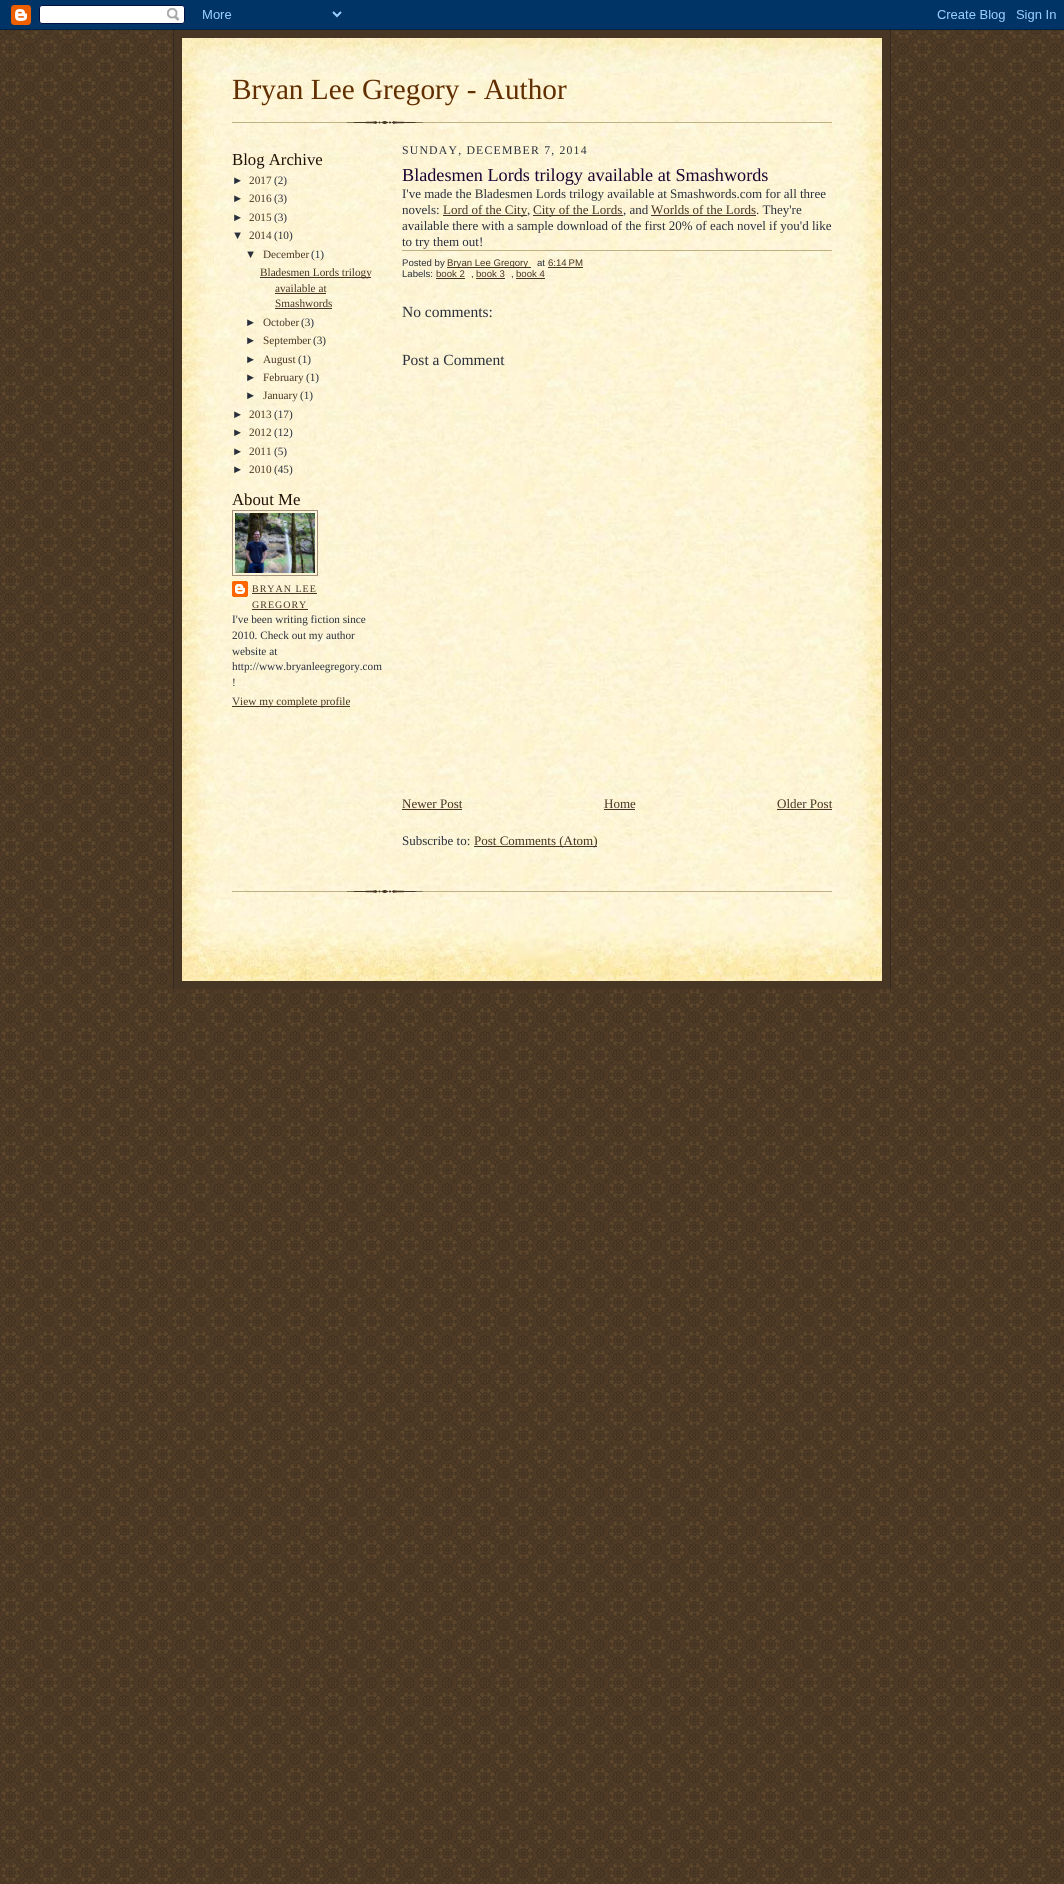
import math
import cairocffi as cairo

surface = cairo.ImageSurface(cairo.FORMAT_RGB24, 1064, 1884)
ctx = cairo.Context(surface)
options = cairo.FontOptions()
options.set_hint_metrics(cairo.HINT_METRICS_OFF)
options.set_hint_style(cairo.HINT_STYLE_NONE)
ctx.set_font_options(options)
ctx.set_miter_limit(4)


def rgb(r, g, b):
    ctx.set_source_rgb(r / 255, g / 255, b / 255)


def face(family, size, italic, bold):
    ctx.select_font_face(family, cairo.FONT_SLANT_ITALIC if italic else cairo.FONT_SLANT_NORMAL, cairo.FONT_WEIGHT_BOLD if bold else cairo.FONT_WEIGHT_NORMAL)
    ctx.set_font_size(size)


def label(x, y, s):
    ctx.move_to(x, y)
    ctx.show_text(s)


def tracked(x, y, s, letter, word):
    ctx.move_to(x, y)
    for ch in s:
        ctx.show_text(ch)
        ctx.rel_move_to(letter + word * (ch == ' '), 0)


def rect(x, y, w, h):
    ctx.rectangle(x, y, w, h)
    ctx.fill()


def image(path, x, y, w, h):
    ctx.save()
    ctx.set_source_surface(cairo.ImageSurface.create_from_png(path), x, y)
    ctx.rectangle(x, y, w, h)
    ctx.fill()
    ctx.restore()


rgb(255, 255, 255)
ctx.paint()
image('image0.png', 0, 30, 1064, 1854)
image('image1.png', 0, 0, 1064, 30)
rgb(71, 54, 36)
rect(174, 30, 716, 959)
rgb(51, 42, 36)
rect(890, 30, 1, 959)
rect(173, 30, 1, 959)
image('image2.png', 182, 38, 700, 35)
image('image3.png', 182, 73, 700, 827)
image('image4.png', 232, 121, 600, 3)
face('Liberation Serif', 29.25, 0, 0)
rgb(97, 46, 0)
label(232, 99, 'Bryan Lee Gregory - Author')
face('Liberation Serif', 16.75, 0, 0)
rgb(33, 17, 4)
label(232, 165, 'Blog Archive')
face('Liberation Sans', 11.25, 0, 0)
rgb(41, 48, 59)
label(232, 184, '►')
face('Liberation Serif', 11.25, 0, 0)
rgb(71, 54, 36)
label(249, 184, '2017')
rgb(41, 48, 59)
label(274, 184, '(2)')
face('Liberation Sans', 11.25, 0, 0)
label(232, 202, '►')
face('Liberation Serif', 11.25, 0, 0)
rgb(71, 54, 36)
label(249, 202, '2016')
rgb(41, 48, 59)
label(274, 202, '(3)')
face('Liberation Sans', 11.25, 0, 0)
label(232, 221, '►')
face('Liberation Serif', 11.25, 0, 0)
rgb(71, 54, 36)
label(249, 221, '2015')
rgb(41, 48, 59)
label(274, 221, '(3)')
face('Liberation Sans', 11.25, 0, 0)
label(232, 239, '▼')
face('Liberation Serif', 11.25, 0, 0)
rgb(71, 54, 36)
label(249, 239, '2014')
rgb(41, 48, 59)
label(274, 239, '(10)')
face('Liberation Sans', 11.25, 0, 0)
label(245, 258, '▼')
face('Liberation Serif', 11.25, 0, 0)
rgb(71, 54, 36)
label(263, 258, 'December')
rgb(41, 48, 59)
label(311, 258, '(1)')
rgb(71, 54, 36)
rect(260, 277, 111, 1)
label(260, 276, 'Bladesmen Lords trilogy')
label(275, 292, 'available at')
rect(275, 293, 51, 1)
label(275, 307, 'Smashwords')
rect(275, 308, 57, 1)
face('Liberation Sans', 11.25, 0, 0)
rgb(41, 48, 59)
label(245, 326, '►')
face('Liberation Serif', 11.25, 0, 0)
rgb(71, 54, 36)
label(263, 326, 'October')
rgb(41, 48, 59)
label(301, 326, '(3)')
face('Liberation Sans', 11.25, 0, 0)
label(245, 344, '►')
face('Liberation Serif', 11.25, 0, 0)
rgb(71, 54, 36)
label(263, 344, 'September')
rgb(41, 48, 59)
label(313, 344, '(3)')
face('Liberation Sans', 11.25, 0, 0)
label(245, 363, '►')
face('Liberation Serif', 11.25, 0, 0)
rgb(71, 54, 36)
label(263, 363, 'August')
rgb(41, 48, 59)
label(298, 363, '(1)')
face('Liberation Sans', 11.25, 0, 0)
label(245, 381, '►')
face('Liberation Serif', 11.25, 0, 0)
rgb(71, 54, 36)
label(263, 381, 'February')
rgb(41, 48, 59)
label(306, 381, '(1)')
face('Liberation Sans', 11.25, 0, 0)
label(245, 399, '►')
face('Liberation Serif', 11.25, 0, 0)
rgb(71, 54, 36)
label(263, 399, 'January')
rgb(41, 48, 59)
label(300, 399, '(1)')
face('Liberation Sans', 11.25, 0, 0)
label(232, 418, '►')
face('Liberation Serif', 11.25, 0, 0)
rgb(71, 54, 36)
label(249, 418, '2013')
rgb(41, 48, 59)
label(274, 418, '(17)')
face('Liberation Sans', 11.25, 0, 0)
label(232, 436, '►')
face('Liberation Serif', 11.25, 0, 0)
rgb(71, 54, 36)
label(249, 436, '2012')
rgb(41, 48, 59)
label(274, 436, '(12)')
face('Liberation Sans', 11.25, 0, 0)
label(232, 455, '►')
face('Liberation Serif', 11.25, 0, 0)
rgb(71, 54, 36)
label(249, 455, '2011')
rgb(41, 48, 59)
label(274, 455, '(5)')
face('Liberation Sans', 11.25, 0, 0)
label(232, 473, '►')
face('Liberation Serif', 11.25, 0, 0)
rgb(71, 54, 36)
label(249, 473, '2010')
rgb(41, 48, 59)
label(274, 473, '(45)')
face('Liberation Serif', 16.75, 0, 0)
rgb(33, 17, 4)
label(232, 505, 'About Me')
ctx.rectangle(232.5, 510.5, 85, 65)
rgb(162, 144, 125)
ctx.set_line_width(1)
ctx.stroke()
image('image5.png', 235, 513, 80, 60)
image('image6.png', 232, 581, 16, 16)
face('Liberation Serif', 10, 0, 0)
rgb(71, 54, 36)
tracked(252, 592, 'BRYAN LEE', 1, 0)
rect(252, 593, 65, 1)
tracked(252, 608, 'GREGORY', 1, 0)
rect(252, 609, 56, 1)
face('Liberation Serif', 11.25, 0, 0)
rgb(41, 48, 59)
label(232, 623, 'I\'ve been writing fiction since')
label(232, 639, '2010. Check out my author')
label(232, 655, 'website at')
label(232, 670, 'http://www.bryanleegregory.com')
label(232, 686, '!')
rgb(71, 54, 36)
rect(232, 706, 118, 1)
label(232, 705, 'View my complete profile')
face('Liberation Serif', 11.75, 0, 0)
rgb(41, 48, 59)
tracked(402, 154, 'SUNDAY, DECEMBER 7, 2014', 1.2, 0)
face('Liberation Serif', 18.2, 0, 0)
rgb(27, 4, 49)
label(402, 181, 'Bladesmen Lords trilogy available at Smashwords')
face('Liberation Serif', 13, 0, 0)
rgb(41, 48, 59)
label(402, 198, 'I\'ve made the Bladesmen Lords trilogy available at Smashwords.com for all three')
label(402, 214, 'novels:')
rgb(71, 54, 36)
rect(443, 215, 84, 1)
label(443, 214, 'Lord of the City')
rgb(41, 48, 59)
label(527, 214, ',')
rgb(71, 54, 36)
rect(533, 215, 90, 1)
label(533, 214, 'City of the Lords')
rgb(41, 48, 59)
label(623, 214, ', and')
rgb(71, 54, 36)
label(651, 214, 'Worlds of the Lords')
rect(651, 215, 105, 1)
rgb(41, 48, 59)
label(756, 214, '. They\'re')
label(402, 230, 'available there with a sample download of the first 20% of each novel if you\'d like')
label(402, 246, 'to try them out!')
rgb(191, 177, 134)
rect(402, 250, 430, 1)
face('Liberation Sans', 9.6, 0, 0)
rgb(41, 48, 59)
label(402, 266, 'Posted by')
rgb(71, 54, 36)
rect(447, 267, 84, 1)
label(447, 266, 'Bryan Lee Gregory')
rgb(41, 48, 59)
label(537, 266, 'at')
rgb(71, 54, 36)
label(548, 266, '6:14 PM')
rect(548, 267, 35, 1)
rgb(41, 48, 59)
label(402, 277, 'Labels:')
rgb(71, 54, 36)
label(436, 277, 'book 2')
rgb(41, 48, 59)
label(471, 277, ',')
rgb(71, 54, 36)
rect(436, 278, 29, 1)
rect(476, 278, 29, 1)
label(476, 277, 'book 3')
rgb(41, 48, 59)
label(511, 277, ',')
rgb(71, 54, 36)
rect(516, 278, 29, 1)
label(516, 277, 'book 4')
face('Liberation Serif', 15.5, 0, 0)
rgb(41, 48, 59)
label(402, 317, 'No comments:')
label(402, 365, 'Post a Comment')
face('Liberation Serif', 13, 0, 0)
rgb(71, 54, 36)
label(402, 808, 'Newer Post')
rect(402, 809, 60, 1)
label(604, 808, 'Home')
rect(604, 809, 31, 1)
label(777, 808, 'Older Post')
rect(777, 809, 55, 1)
rgb(41, 48, 59)
label(402, 845, 'Subscribe to:')
rgb(71, 54, 36)
rect(474, 846, 123, 1)
label(474, 845, 'Post Comments (Atom)')
image('image7.png', 232, 890, 600, 3)
image('image8.png', 182, 900, 700, 81)
surface.write_to_png('render.png')
